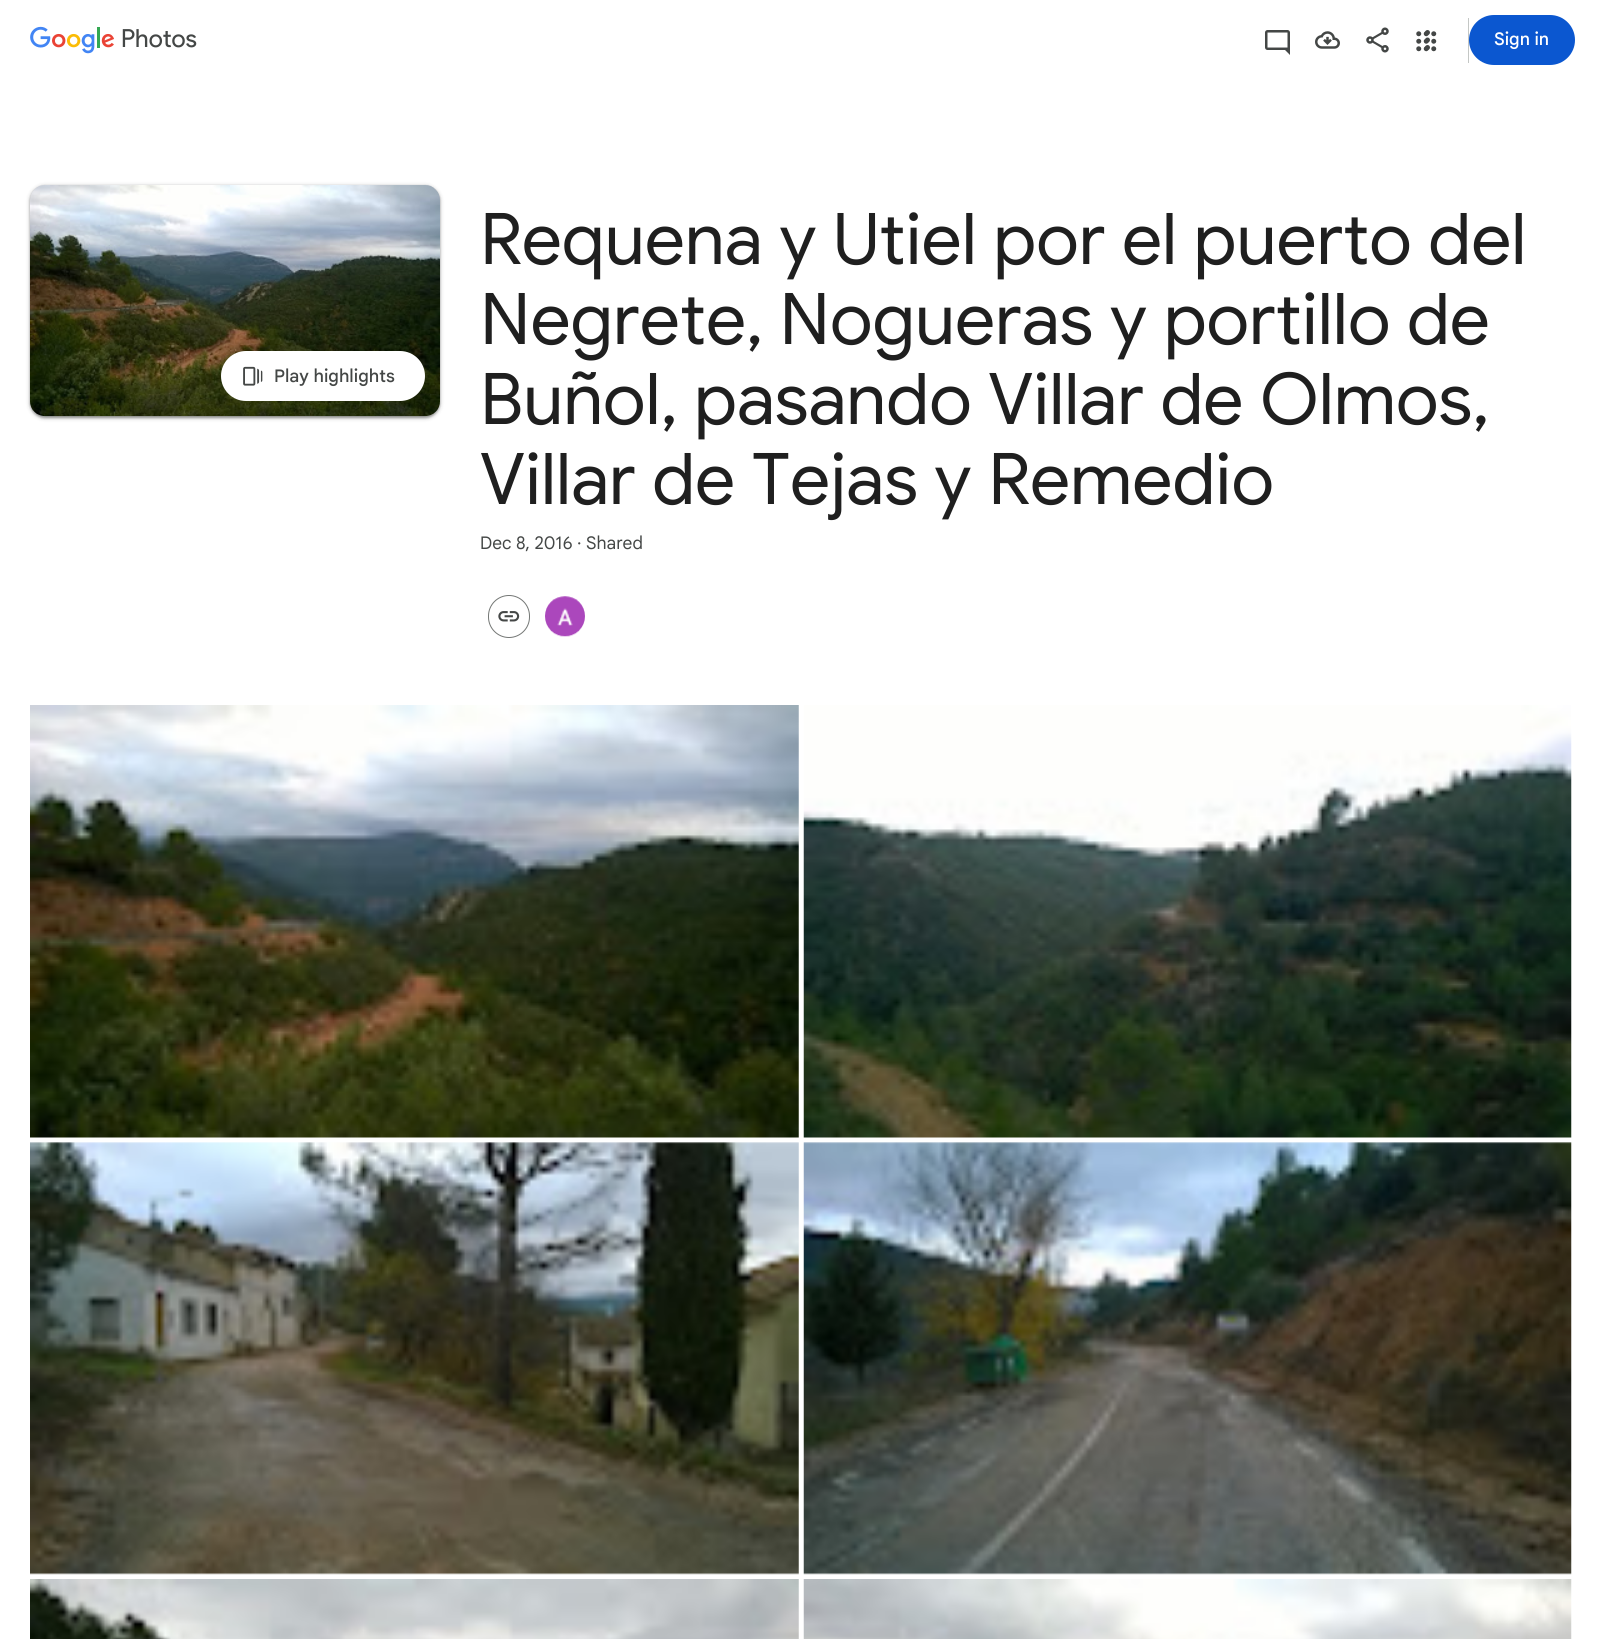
import math
import cairocffi as cairo

surface = cairo.ImageSurface(cairo.FORMAT_RGB24, 1620, 1639)
ctx = cairo.Context(surface)
options = cairo.FontOptions()
options.set_hint_metrics(cairo.HINT_METRICS_OFF)
options.set_hint_style(cairo.HINT_STYLE_NONE)
ctx.set_font_options(options)
ctx.set_miter_limit(4)


def rgb(r, g, b):
    ctx.set_source_rgb(r / 255, g / 255, b / 255)


def face(family, size, italic, bold):
    ctx.select_font_face(family, cairo.FONT_SLANT_ITALIC if italic else cairo.FONT_SLANT_NORMAL, cairo.FONT_WEIGHT_BOLD if bold else cairo.FONT_WEIGHT_NORMAL)
    ctx.set_font_size(size)


def label(x, y, s):
    ctx.move_to(x, y)
    ctx.show_text(s)


def rect(x, y, w, h):
    ctx.rectangle(x, y, w, h)
    ctx.fill()


def rrect(x, y, w, h, r):
    ctx.new_sub_path()
    for i, (u, v) in enumerate([(x + w - r, y + h - r), (x + r, y + h - r), (x + r, y + r), (x + w - r, y + r)]):
        ctx.arc(u, v, r, i * math.pi / 2, (i + 1) * math.pi / 2)
    ctx.close_path()


def soft_shadow(x, y, w, h, r, blur, alpha):
    ctx.push_group_with_content(cairo.CONTENT_ALPHA)
    ctx.set_operator(cairo.OPERATOR_SOURCE)
    for i in range(15, -16, -2):
        e = blur * i / 6
        if min(w, h) + 2 * e > 0:
            ctx.set_source_rgba(0, 0, 0, alpha * math.erfc((i - 1) / 8.5) / 2)
            rrect(x - e, y - e, w + 2 * e, h + 2 * e, max(0, min(r + e + blur * .6, min(w, h) / 2 + e)))
            ctx.fill()
    ctx.mask(ctx.pop_group())


def image(path, x, y, w, h):
    ctx.save()
    ctx.set_source_surface(cairo.ImageSurface.create_from_png(path), x, y)
    ctx.rectangle(x, y, w, h)
    ctx.fill()
    ctx.restore()


rgb(255, 255, 255)
ctx.paint()
image('image0.png', 30, 26, 84, 28)
face('Product Sans', 25, 0, 0)
rgb(68, 71, 70)
label(121, 47, 'Photos')
image('image1.png', 1265, 30, 25, 25)
image('image2.png', 1315, 31, 25, 18)
image('image3.png', 1366, 27, 23, 26)
image('image4.png', 1425, 30, 5, 20)
rgb(196, 199, 197)
rect(1468, 18, 1, 45)
rgb(0, 0, 0)
soft_shadow(29, 185, 412, 234, 16, 2, 0.15)
soft_shadow(30, 186, 410, 232, 15, 1, 0.3)
image('image5.png', 30, 185, 410, 232)
rgb(255, 255, 255)
rrect(221, 351, 204, 50, 25)
ctx.fill()
image('image6.png', 243, 366, 20, 20)
face('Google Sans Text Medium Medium', 17.5, 0, 0)
rgb(68, 71, 70)
label(274, 382, 'Play highlights')
face('Google Sans', 71.25, 0, 0)
rgb(31, 31, 31)
label(480, 264, 'Requena y Utiel por el puerto del')
label(480, 344, 'Negrete, Nogueras y portillo de')
label(480, 424, 'Buñol, pasando Villar de Olmos,')
label(480, 504, 'Villar de Tejas y Remedio')
face('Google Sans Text', 17.5, 0, 0)
rgb(68, 71, 70)
label(480, 549, 'Dec 8, 2016 · Shared')
rrect(488.5, 595.5, 41, 42, 20.5)
rgb(116, 119, 117)
ctx.set_line_width(1)
ctx.stroke()
image('image7.png', 498, 611, 22, 11)
image('image8.png', 545, 596, 40, 41)
image('image9.png', 30, 705, 769, 433)
image('image10.png', 803, 705, 769, 433)
image('image11.png', 30, 1142, 769, 433)
image('image12.png', 803, 1142, 769, 433)
image('image13.png', 30, 1579, 769, 60)
image('image14.png', 803, 1579, 769, 60)
image('image15.png', 1416, 31, 21, 21)
rgb(11, 87, 208)
rrect(1469, 15, 106, 50, 25)
ctx.fill()
face('Google Sans Text Medium Medium', 17.5, 0, 0)
rgb(255, 255, 255)
label(1494, 45, 'Sign in')
surface.write_to_png('render.png')
